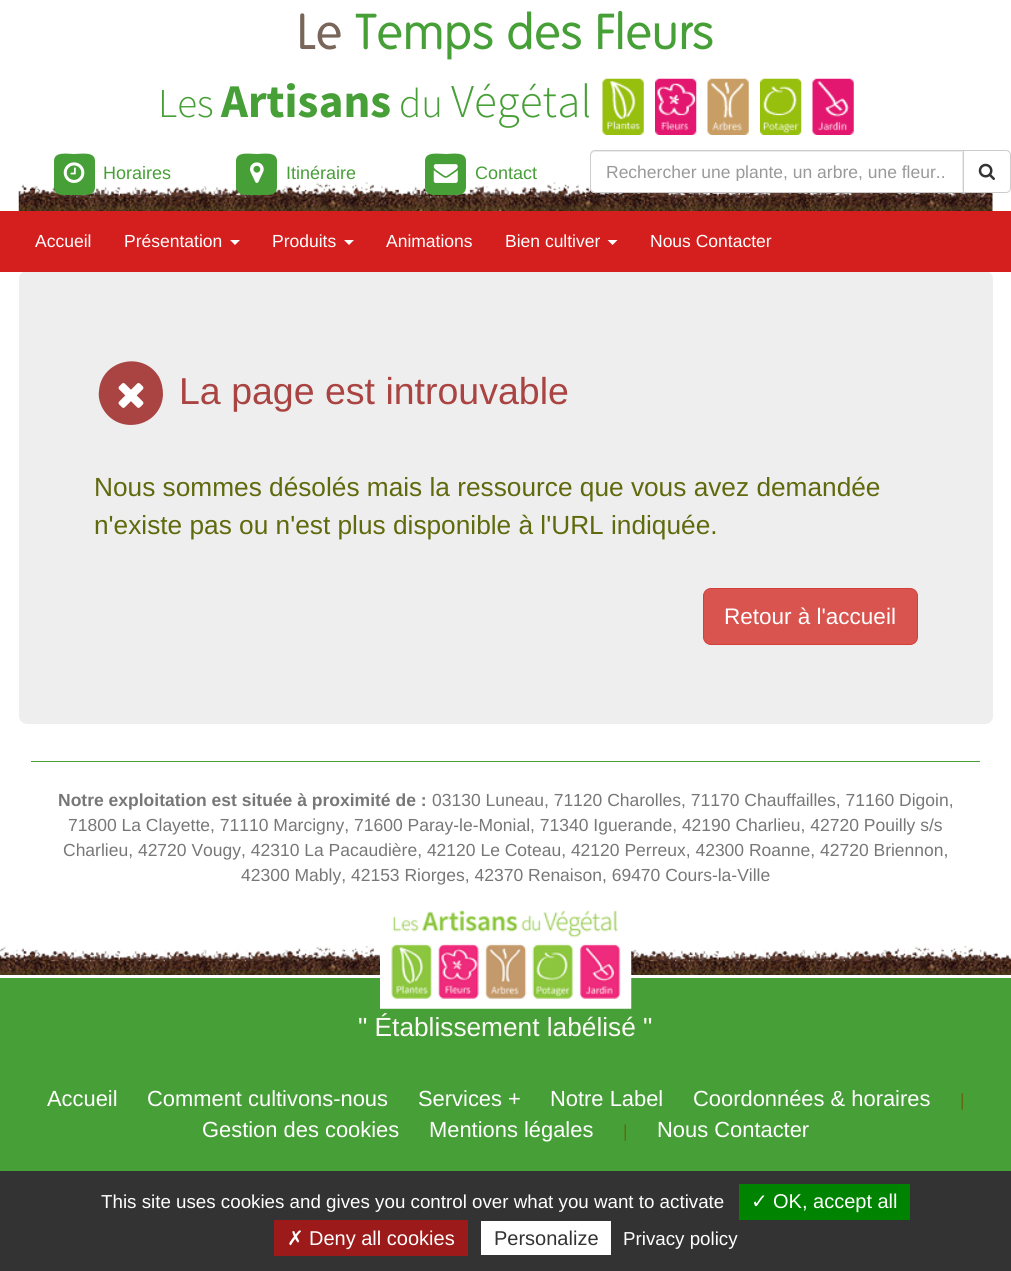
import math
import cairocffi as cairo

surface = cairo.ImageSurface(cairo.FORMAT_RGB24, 1011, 1271)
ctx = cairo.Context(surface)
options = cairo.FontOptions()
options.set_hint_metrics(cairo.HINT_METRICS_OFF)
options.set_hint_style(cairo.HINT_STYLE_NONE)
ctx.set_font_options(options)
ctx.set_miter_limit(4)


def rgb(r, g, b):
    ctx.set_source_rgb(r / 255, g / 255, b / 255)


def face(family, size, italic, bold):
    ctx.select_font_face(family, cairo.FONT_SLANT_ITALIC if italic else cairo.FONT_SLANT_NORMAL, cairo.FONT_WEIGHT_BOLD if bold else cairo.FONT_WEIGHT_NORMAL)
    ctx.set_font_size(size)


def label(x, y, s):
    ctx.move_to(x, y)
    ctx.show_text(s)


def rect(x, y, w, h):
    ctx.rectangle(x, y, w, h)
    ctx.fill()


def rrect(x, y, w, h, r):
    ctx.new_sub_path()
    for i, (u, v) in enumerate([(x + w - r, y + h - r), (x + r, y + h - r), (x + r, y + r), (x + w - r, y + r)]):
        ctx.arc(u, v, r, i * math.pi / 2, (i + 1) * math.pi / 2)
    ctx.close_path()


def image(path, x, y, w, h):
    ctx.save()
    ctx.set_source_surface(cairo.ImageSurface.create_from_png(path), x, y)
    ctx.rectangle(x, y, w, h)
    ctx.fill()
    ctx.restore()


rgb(255, 255, 255)
ctx.paint()
image('image0.png', 18, 180, 975, 31)
face('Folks', 49, 0, 0)
rgb(121, 102, 91)
label(297, 49, 'Le')
rgb(71, 159, 55)
label(355, 49, 'Temps des Fleurs')
face('Source Sans Pro Light', 41, 0, 0)
label(158, 117, 'Les')
face('Source Sans Pro', 47, 0, 1)
label(221, 117, 'Artisans')
face('Source Sans Pro Light', 41, 0, 0)
label(399, 117, 'du')
face('Source Sans Pro Light', 47, 0, 0)
label(451, 117, 'Végétal')
image('image1.png', 602, 78, 42, 57)
image('image2.png', 655, 78, 42, 57)
image('image3.png', 707, 78, 42, 57)
image('image4.png', 760, 78, 42, 57)
image('image5.png', 812, 78, 42, 57)
ctx.new_path()
ctx.move_to(95, 161)
ctx.line_to(95, 188)
ctx.curve_to(94, 195, 88, 195, 83, 195)
ctx.line_to(66, 195)
ctx.curve_to(61, 195, 55, 195, 54, 188)
ctx.line_to(54, 161)
ctx.curve_to(54, 151, 68, 154, 74, 154)
ctx.curve_to(81, 154, 95, 151, 95, 161)
ctx.close_path()
ctx.fill()
image('image6.png', 63, 162, 22, 21)
face('Liberation Sans', 18, 0, 0)
label(103, 179, 'Horaires')
ctx.new_path()
ctx.move_to(277, 161)
ctx.line_to(277, 188)
ctx.curve_to(276, 195, 270, 195, 265, 195)
ctx.line_to(248, 195)
ctx.curve_to(243, 195, 238, 195, 236, 188)
ctx.line_to(236, 161)
ctx.curve_to(236, 151, 250, 154, 257, 154)
ctx.curve_to(263, 154, 277, 151, 277, 161)
ctx.close_path()
ctx.fill()
image('image7.png', 250, 162, 14, 21)
label(286, 179, 'Itinéraire')
ctx.new_path()
ctx.move_to(466, 161)
ctx.line_to(466, 188)
ctx.curve_to(465, 195, 459, 195, 454, 195)
ctx.line_to(437, 195)
ctx.curve_to(432, 195, 426, 195, 425, 188)
ctx.line_to(425, 161)
ctx.curve_to(425, 151, 439, 154, 446, 154)
ctx.curve_to(452, 154, 466, 151, 466, 161)
ctx.close_path()
ctx.fill()
image('image8.png', 433, 164, 25, 19)
label(475, 179, 'Contact')
rgb(255, 255, 255)
ctx.new_path()
ctx.move_to(595, 150)
ctx.line_to(964, 150)
ctx.line_to(964, 193)
ctx.line_to(595, 193)
ctx.curve_to(592, 193, 590, 191, 590, 188)
ctx.line_to(590, 155)
ctx.curve_to(590, 152, 592, 150, 595, 150)
ctx.close_path()
ctx.fill()
rgb(236, 236, 236)
ctx.new_path()
ctx.move_to(595, 152)
ctx.line_to(962, 152)
ctx.line_to(962, 191)
ctx.line_to(963, 191)
ctx.line_to(963, 151)
ctx.line_to(595, 151)
ctx.curve_to(592, 151, 591, 153, 591, 156)
ctx.curve_to(591, 154, 593, 152, 595, 152)
ctx.close_path()
ctx.fill()
ctx.new_path()
ctx.move_to(595, 150.5)
ctx.line_to(963.5, 150.5)
ctx.line_to(963.5, 192.5)
ctx.line_to(595, 192.5)
ctx.curve_to(592.5, 192.5, 590.5, 190.5, 590.5, 188)
ctx.line_to(590.5, 155)
ctx.curve_to(590.5, 152.5, 592.5, 150.5, 595, 150.5)
ctx.close_path()
rgb(204, 204, 204)
ctx.set_line_width(1)
ctx.stroke()
ctx.save()
ctx.rectangle(606, 161, 342, 20)
ctx.clip()
face('Liberation Sans', 17.5, 0, 0)
rgb(153, 153, 153)
label(606, 178, 'Rechercher une plante, un arbre, une fleur..')
ctx.restore()
rgb(255, 255, 255)
ctx.new_path()
ctx.move_to(963.5, 150.5)
ctx.line_to(1006, 150.5)
ctx.curve_to(1008.5, 150.5, 1010.5, 152.5, 1010.5, 155)
ctx.line_to(1010.5, 188)
ctx.curve_to(1010.5, 190.5, 1008.5, 192.5, 1006, 192.5)
ctx.line_to(963.5, 192.5)
ctx.close_path()
ctx.fill_preserve()
rgb(204, 204, 204)
ctx.stroke()
image('image9.png', 978, 163, 17, 17)
rgb(238, 238, 238)
rrect(19, 271, 974, 453, 8)
ctx.fill()
rgb(213, 31, 31)
rect(0, 211, 1011, 61)
face('Liberation Sans', 17.5, 0, 0)
rgb(255, 255, 255)
label(35, 247, 'Accueil')
label(124, 247, 'Présentation')
ctx.new_path()
ctx.move_to(230, 240)
ctx.line_to(240, 240)
ctx.line_to(235, 245)
ctx.close_path()
ctx.fill()
label(272, 247, 'Produits')
ctx.new_path()
ctx.move_to(344, 240)
ctx.line_to(354, 240)
ctx.line_to(349, 245)
ctx.close_path()
ctx.fill()
label(386, 247, 'Animations')
label(505, 247, 'Bien cultiver')
ctx.new_path()
ctx.move_to(607.5, 240)
ctx.line_to(617.5, 240)
ctx.line_to(612.5, 245)
ctx.close_path()
ctx.fill()
label(650, 247, 'Nous Contacter')
image('image10.png', 0, 944, 1011, 31)
rgb(169, 68, 66)
ctx.new_path()
ctx.move_to(159, 377)
ctx.curve_to(162, 383, 163, 389, 163, 395)
ctx.curve_to(161, 427, 119, 436, 103, 409)
ctx.curve_to(100, 404, 98, 397, 99, 391)
ctx.curve_to(101, 360, 143, 350, 159, 377)
ctx.close_path()
ctx.fill()
image('image11.png', 118, 383, 26, 25)
face('Liberation Sans', 37.5, 0, 0)
label(179, 404, 'La page est introuvable')
face('Liberation Sans', 26.25, 0, 0)
rgb(97, 105, 13)
label(94, 496, 'Nous sommes désolés mais la ressource que vous avez demandée')
label(94, 534, 'n\'existe pas ou n\'est plus disponible à l\'URL indiquée.')
rgb(217, 83, 79)
rrect(703.5, 588.5, 214, 56, 7.5)
ctx.fill_preserve()
rgb(212, 63, 58)
ctx.stroke()
face('Liberation Sans', 22.5, 0, 0)
rgb(255, 255, 255)
label(724, 624, 'Retour à l\'accueil')
rgb(71, 159, 55)
rect(31, 761, 949, 1)
face('Liberation Sans', 17.5, 0, 1)
rgb(119, 119, 119)
label(58, 806, 'Notre exploitation est située à proximité de :')
face('Liberation Sans', 17.5, 0, 0)
label(432, 806, '03130 Luneau, 71120 Charolles, 71170 Chauffailles, 71160 Digoin,')
label(68, 831, '71800 La Clayette, 71110 Marcigny, 71600 Paray-le-Monial, 71340 Iguerande, 42190 Charlieu, 42720 Pouilly s/s')
label(63, 856, 'Charlieu, 42720 Vougy, 42310 La Pacaudière, 42120 Le Coteau, 42120 Perreux, 42300 Roanne, 42720 Briennon,')
label(241, 881, '42300 Mably, 42153 Riorges, 42370 Renaison, 69470 Cours-la-Ville')
rgb(71, 159, 55)
rect(0, 978, 1011, 193)
image('image12.png', 380, 910, 252, 99)
face('Liberation Sans', 26.25, 0, 0)
rgb(252, 250, 246)
label(358, 1036, '" Établissement labélisé "')
face('Liberation Sans', 21.9, 0, 0)
rgb(255, 255, 255)
label(47, 1106, 'Accueil')
label(147, 1106, 'Comment cultivons-nous')
label(418, 1106, 'Services +')
label(550, 1106, 'Notre Label')
label(693, 1106, 'Coordonnées & horaires')
face('Liberation Sans', 17.5, 0, 0)
rgb(97, 105, 13)
label(960, 1106, '|')
face('Liberation Sans', 21.9, 0, 0)
rgb(255, 255, 255)
label(202, 1137, 'Gestion des cookies')
label(429, 1137, 'Mentions légales')
face('Liberation Sans', 17.5, 0, 0)
rgb(97, 105, 13)
label(623, 1137, '|')
face('Liberation Sans', 21.9, 0, 0)
rgb(255, 255, 255)
label(657, 1137, 'Nous Contacter')
rgb(51, 51, 51)
rect(0, 1171, 1011, 100)
face('Liberation Sans', 18.75, 0, 0)
rgb(255, 255, 255)
label(101, 1208, 'This site uses cookies and gives you control over what you want to activate')
rgb(0, 131, 0)
rect(739, 1184, 171, 36)
face('DejaVu Sans', 20, 0, 0)
rgb(255, 255, 255)
label(751, 1208, '✓')
face('Liberation Sans', 20, 0, 0)
label(773, 1208, 'OK, accept all')
rgb(156, 26, 26)
rect(274, 1220, 194, 36)
face('DejaVu Sans', 20, 0, 0)
rgb(255, 255, 255)
label(287, 1245, '✗')
face('Liberation Sans', 20, 0, 0)
label(309, 1245, 'Deny all cookies')
rect(481, 1221, 130, 34)
rgb(51, 51, 51)
label(494, 1245, 'Personalize')
face('Liberation Sans', 18.75, 0, 0)
rgb(255, 255, 255)
label(623, 1245, 'Privacy policy')
surface.write_to_png('render.png')
